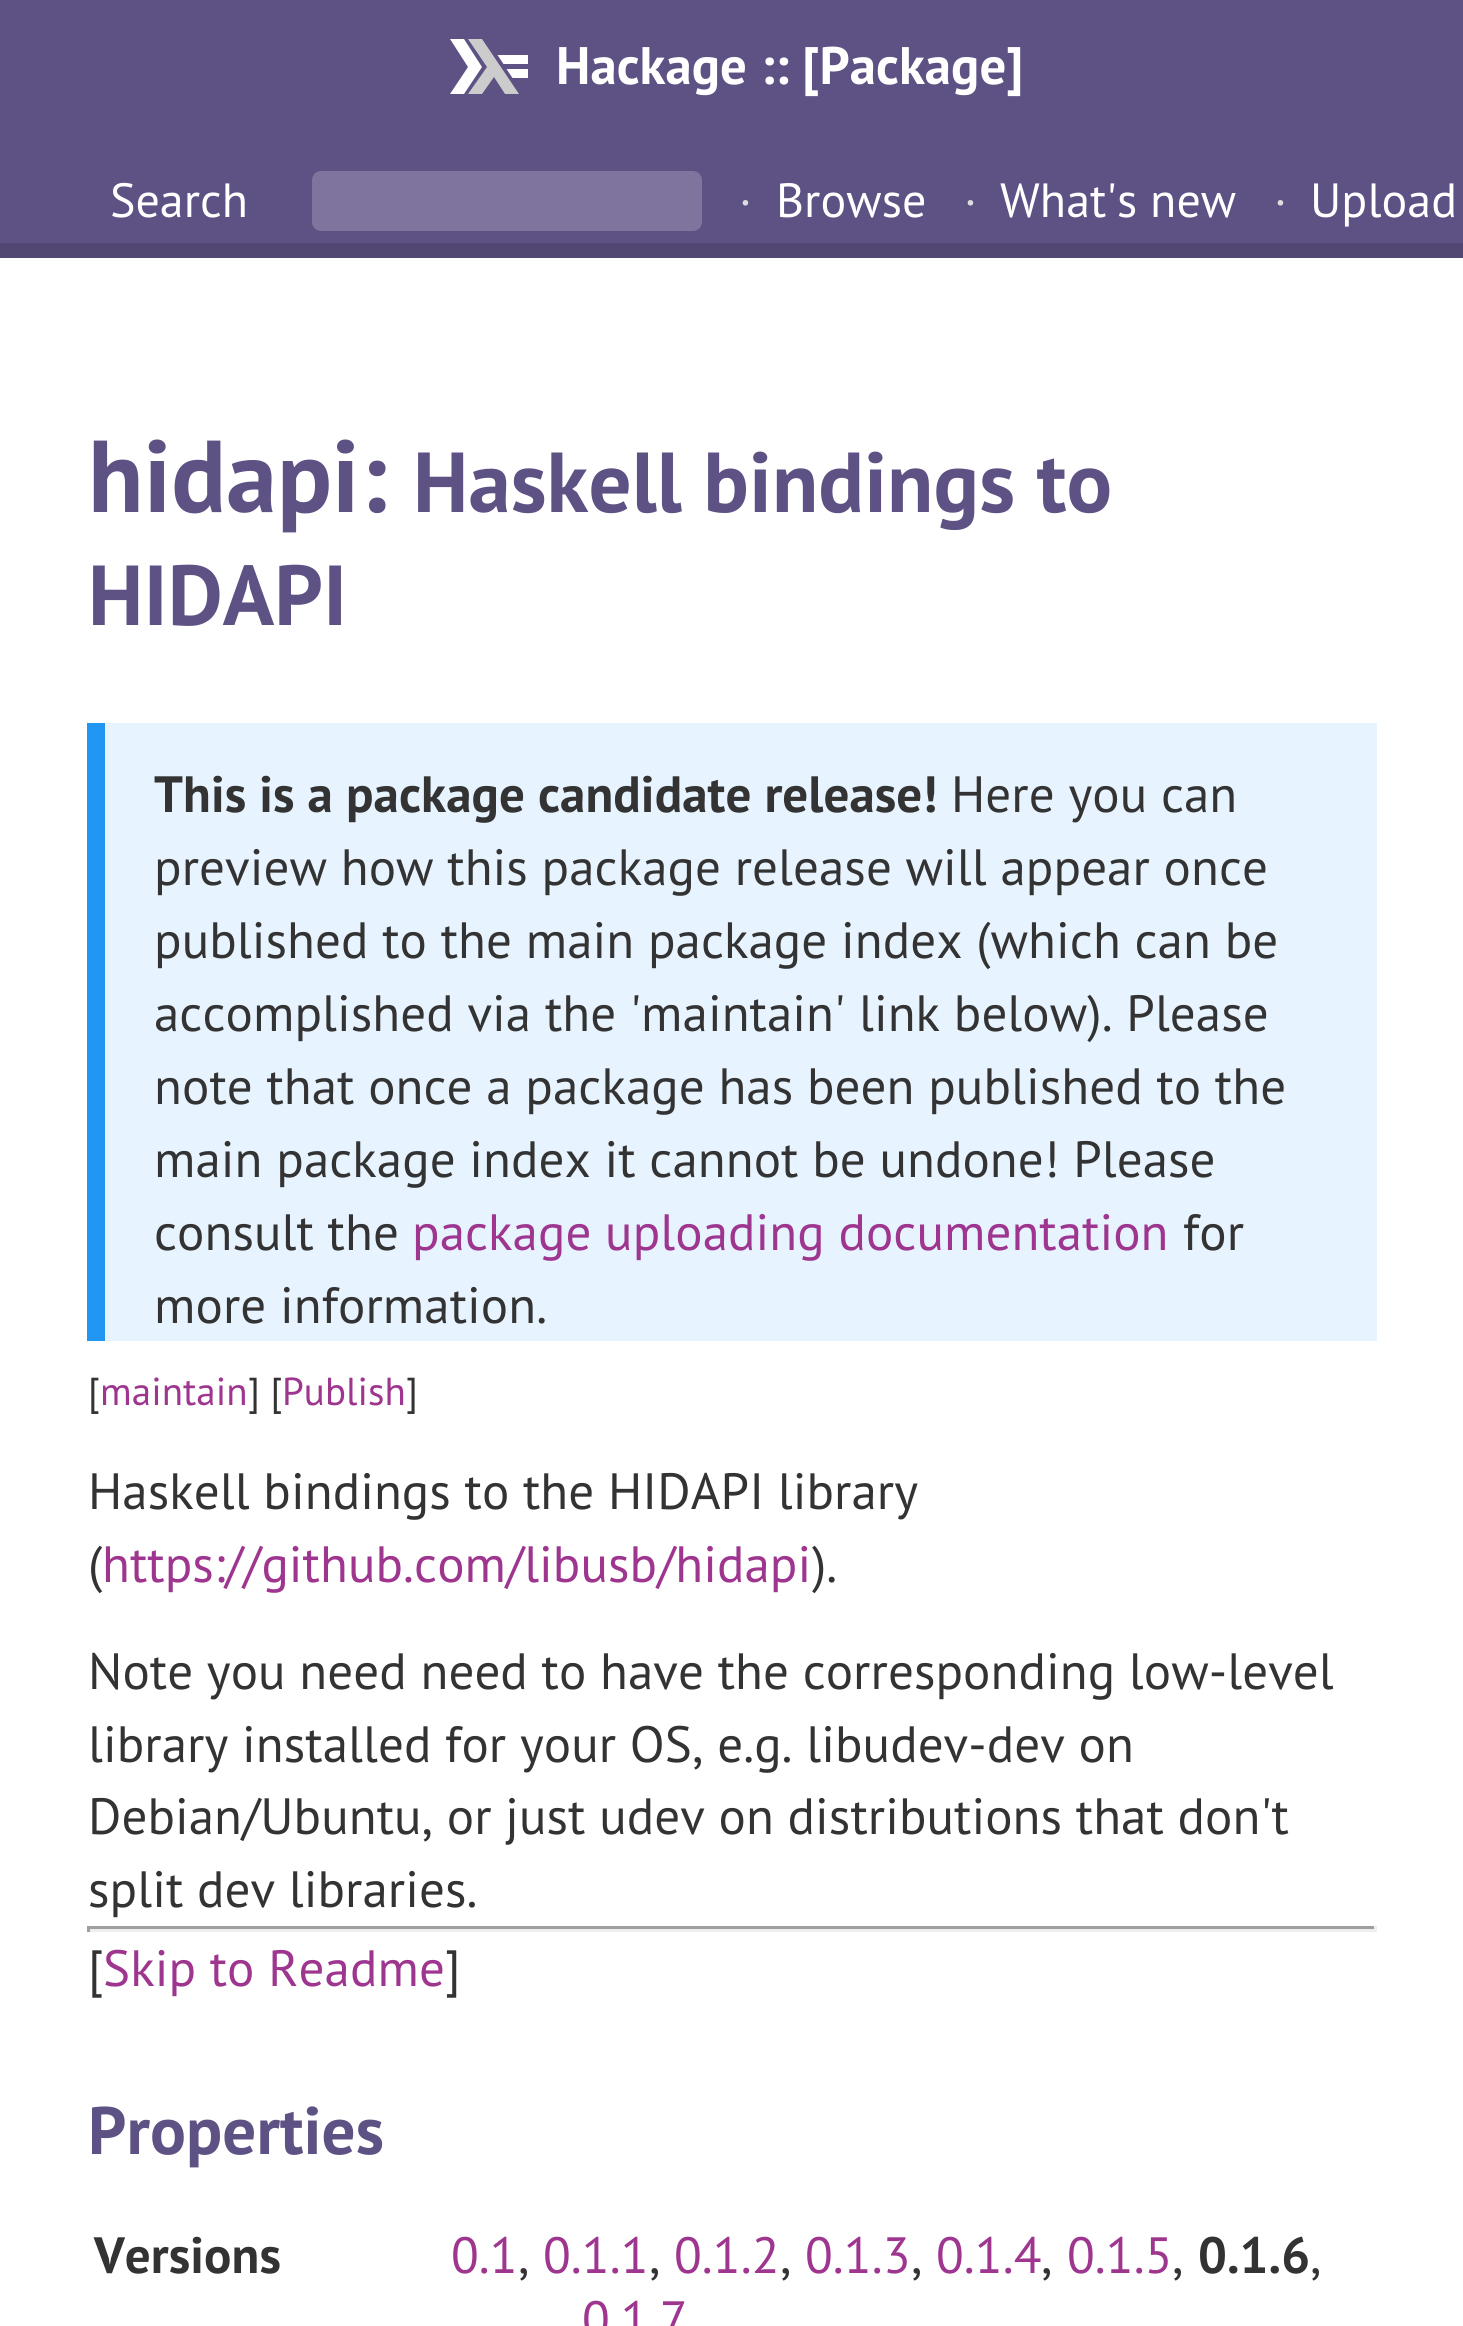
import math
import cairocffi as cairo

surface = cairo.ImageSurface(cairo.FORMAT_RGB24, 1463, 2326)
ctx = cairo.Context(surface)
options = cairo.FontOptions()
options.set_hint_metrics(cairo.HINT_METRICS_OFF)
options.set_hint_style(cairo.HINT_STYLE_NONE)
ctx.set_font_options(options)
ctx.set_miter_limit(4)


def rgb(r, g, b):
    ctx.set_source_rgb(r / 255, g / 255, b / 255)


def face(family, size, italic, bold):
    ctx.select_font_face(family, cairo.FONT_SLANT_ITALIC if italic else cairo.FONT_SLANT_NORMAL, cairo.FONT_WEIGHT_BOLD if bold else cairo.FONT_WEIGHT_NORMAL)
    ctx.set_font_size(size)


def label(x, y, s):
    ctx.move_to(x, y)
    ctx.show_text(s)


def tracked(x, y, s, letter, word):
    ctx.move_to(x, y)
    for ch in s:
        ctx.show_text(ch)
        ctx.rel_move_to(letter + word * (ch == ' '), 0)


def rect(x, y, w, h):
    ctx.rectangle(x, y, w, h)
    ctx.fill()


def rrect(x, y, w, h, r):
    ctx.new_sub_path()
    for i, (u, v) in enumerate([(x + w - r, y + h - r), (x + r, y + h - r), (x + r, y + r), (x + w - r, y + r)]):
        ctx.arc(u, v, r, i * math.pi / 2, (i + 1) * math.pi / 2)
    ctx.close_path()


rgb(255, 255, 255)
ctx.paint()
rgb(94, 81, 132)
rect(0, 0, 1463, 243)
rgb(82, 70, 115)
rect(0, 243, 1463, 15)
face('PT Sans', 52.75, 0, 1)
rgb(255, 255, 255)
tracked(556, 84, 'Hackage :: [Package]', 0.07, 0)
ctx.new_path()
ctx.move_to(450, 94)
ctx.line_to(468, 67)
ctx.line_to(450, 39)
ctx.line_to(464, 39)
ctx.line_to(482, 67)
ctx.line_to(464, 94)
ctx.close_path()
ctx.fill()
rgb(204, 204, 204)
ctx.new_path()
ctx.move_to(468, 94)
ctx.line_to(487, 67)
ctx.line_to(468, 39)
ctx.line_to(482, 39)
ctx.line_to(519, 94)
ctx.line_to(505, 94)
ctx.line_to(494, 77)
ctx.line_to(482, 94)
ctx.close_path()
ctx.fill()
rgb(255, 255, 255)
ctx.new_path()
ctx.move_to(512.5, 78)
ctx.line_to(506.5, 69)
ctx.line_to(528, 69)
ctx.line_to(528, 78)
ctx.close_path()
ctx.move_to(503.5, 64)
ctx.line_to(497.5, 55)
ctx.line_to(528, 55)
ctx.line_to(528, 64)
ctx.close_path()
ctx.fill()
face('PT Sans', 48, 0, 0)
label(110, 217, 'Search')
rgb(126, 116, 157)
rrect(312, 171, 390, 60, 9)
ctx.fill()
rgb(221, 221, 221)
tracked(739, 217, '·', 0.07, 0)
rgb(255, 255, 255)
tracked(776, 217, 'Browse', 0.07, 0)
rgb(221, 221, 221)
tracked(964, 217, '·', 0.07, 0)
rgb(255, 255, 255)
tracked(1000, 217, 'What\'s new', 0.07, 0)
rgb(221, 221, 221)
tracked(1274, 217, '·', 0.07, 0)
rgb(255, 255, 255)
tracked(1310, 217, 'Upload', 0.07, 0)
face('PT Sans', 102, 0, 1)
rgb(94, 81, 132)
tracked(88, 512, 'hidapi:', 0.07, 0)
face('PT Sans', 85, 0, 1)
tracked(413, 512, 'Haskell bindings to', 0.07, 0)
tracked(88, 625, 'HIDAPI', 0.07, 0)
rgb(231, 243, 254)
rect(105, 723, 1272, 618)
rgb(33, 150, 243)
rect(87, 723, 18, 618)
face('PT Sans', 51, 0, 1)
rgb(51, 51, 51)
tracked(154, 812, 'This is a package candidate release!', 0.07, 0)
face('PT Sans', 51, 0, 0)
tracked(951, 812, 'Here you can', 0.07, 0)
tracked(154, 885, 'preview how this package release will appear once', 0.07, 0)
tracked(154, 958, 'published to the main package index (which can be', 0.07, 0)
tracked(154, 1031, 'accomplished via the \'maintain\' link below). Please', 0.07, 0)
tracked(154, 1104, 'note that once a package has been published to the', 0.07, 0)
tracked(154, 1177, 'main package index it cannot be undone! Please', 0.07, 0)
tracked(154, 1250, 'consult the', 0.07, 0)
rgb(158, 53, 143)
tracked(412, 1250, 'package uploading documentation', 0.07, 0)
rgb(51, 51, 51)
tracked(1183, 1250, 'for', 0.07, 0)
tracked(154, 1323, 'more information.', 0.07, 0)
face('PT Sans', 39, 0, 0)
tracked(88, 1405, '[', 0.07, 0)
rgb(158, 53, 143)
tracked(100, 1405, 'maintain', 0.07, 0)
rgb(51, 51, 51)
tracked(248, 1405, '] [', 0.07, 0)
rgb(158, 53, 143)
tracked(282, 1405, 'Publish', 0.07, 0)
rgb(51, 51, 51)
tracked(406, 1405, ']', 0.07, 0)
face('PT Sans', 51, 0, 0)
tracked(88, 1509, 'Haskell bindings to the HIDAPI library', 0.07, 0)
tracked(88, 1582, '(', 0.07, 0)
rgb(158, 53, 143)
tracked(102, 1582, 'https://github.com/libusb/hidapi', 0.07, 0)
rgb(51, 51, 51)
tracked(812, 1582, ').', 0.07, 0)
tracked(88, 1689, 'Note you need need to have the corresponding low-level', 0.07, 0)
tracked(88, 1762, 'library installed for your OS, e.g. libudev-dev on', 0.07, 0)
tracked(88, 1834, 'Debian/Ubuntu, or just udev on distributions that don\'t', 0.07, 0)
tracked(88, 1907, 'split dev libraries.', 0.07, 0)
rgb(159, 159, 159)
rect(87, 1926, 1290, 3)
rgb(238, 238, 238)
rect(1374, 1926, 3, 6)
rect(87, 1929, 1290, 3)
rgb(159, 159, 159)
rect(87, 1926, 3, 6)
rgb(51, 51, 51)
tracked(88, 1986, '[', 0.07, 0)
rgb(158, 53, 143)
tracked(103, 1986, 'Skip to Readme', 0.07, 0)
rgb(51, 51, 51)
tracked(445, 1986, ']', 0.07, 0)
face('PT Sans', 67, 0, 1)
rgb(94, 81, 132)
tracked(88, 2154, 'Properties', 0.07, 0)
face('PT Sans', 51, 0, 1)
rgb(51, 51, 51)
tracked(94, 2273, 'Versions', 0.07, 0)
face('PT Sans', 51, 0, 0)
rgb(158, 53, 143)
tracked(451, 2273, '0.1', 0.07, 0)
rgb(51, 51, 51)
tracked(518, 2273, ',', 0.07, 0)
rgb(158, 53, 143)
tracked(543, 2273, '0.1.1', 0.07, 0)
rgb(51, 51, 51)
tracked(649, 2273, ',', 0.07, 0)
rgb(158, 53, 143)
tracked(674, 2273, '0.1.2', 0.07, 0)
rgb(51, 51, 51)
tracked(780, 2273, ',', 0.07, 0)
rgb(158, 53, 143)
tracked(805, 2273, '0.1.3', 0.07, 0)
rgb(51, 51, 51)
tracked(911, 2273, ',', 0.07, 0)
rgb(158, 53, 143)
tracked(936, 2273, '0.1.4', 0.07, 0)
rgb(51, 51, 51)
tracked(1041, 2273, ',', 0.07, 0)
rgb(158, 53, 143)
tracked(1067, 2273, '0.1.5', 0.07, 0)
rgb(51, 51, 51)
tracked(1172, 2273, ',', 0.07, 0)
face('PT Sans', 51, 0, 1)
tracked(1198, 2273, '0.1.6', 0.07, 0)
face('PT Sans', 51, 0, 0)
tracked(1310, 2273, ',', 0.07, 0)
rgb(158, 53, 143)
tracked(582, 2337, '0.1.7', 0.07, 0)
surface.write_to_png('render.png')
